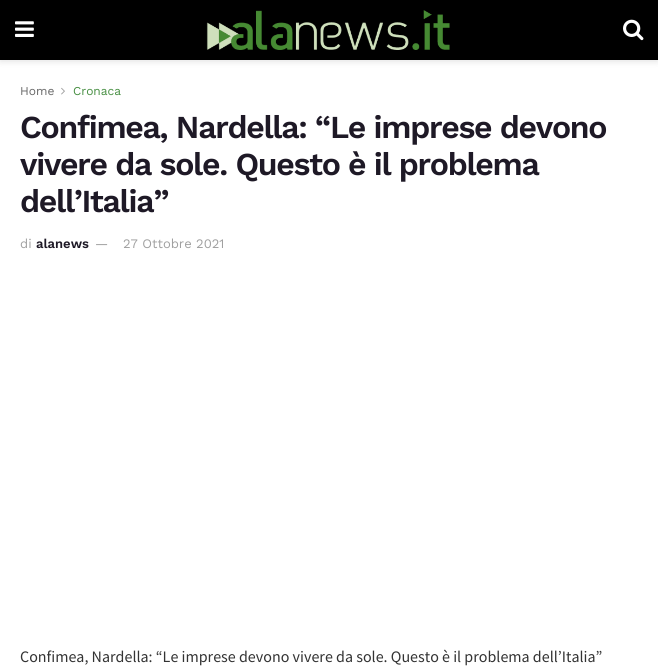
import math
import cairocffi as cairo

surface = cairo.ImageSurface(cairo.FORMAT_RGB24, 658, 671)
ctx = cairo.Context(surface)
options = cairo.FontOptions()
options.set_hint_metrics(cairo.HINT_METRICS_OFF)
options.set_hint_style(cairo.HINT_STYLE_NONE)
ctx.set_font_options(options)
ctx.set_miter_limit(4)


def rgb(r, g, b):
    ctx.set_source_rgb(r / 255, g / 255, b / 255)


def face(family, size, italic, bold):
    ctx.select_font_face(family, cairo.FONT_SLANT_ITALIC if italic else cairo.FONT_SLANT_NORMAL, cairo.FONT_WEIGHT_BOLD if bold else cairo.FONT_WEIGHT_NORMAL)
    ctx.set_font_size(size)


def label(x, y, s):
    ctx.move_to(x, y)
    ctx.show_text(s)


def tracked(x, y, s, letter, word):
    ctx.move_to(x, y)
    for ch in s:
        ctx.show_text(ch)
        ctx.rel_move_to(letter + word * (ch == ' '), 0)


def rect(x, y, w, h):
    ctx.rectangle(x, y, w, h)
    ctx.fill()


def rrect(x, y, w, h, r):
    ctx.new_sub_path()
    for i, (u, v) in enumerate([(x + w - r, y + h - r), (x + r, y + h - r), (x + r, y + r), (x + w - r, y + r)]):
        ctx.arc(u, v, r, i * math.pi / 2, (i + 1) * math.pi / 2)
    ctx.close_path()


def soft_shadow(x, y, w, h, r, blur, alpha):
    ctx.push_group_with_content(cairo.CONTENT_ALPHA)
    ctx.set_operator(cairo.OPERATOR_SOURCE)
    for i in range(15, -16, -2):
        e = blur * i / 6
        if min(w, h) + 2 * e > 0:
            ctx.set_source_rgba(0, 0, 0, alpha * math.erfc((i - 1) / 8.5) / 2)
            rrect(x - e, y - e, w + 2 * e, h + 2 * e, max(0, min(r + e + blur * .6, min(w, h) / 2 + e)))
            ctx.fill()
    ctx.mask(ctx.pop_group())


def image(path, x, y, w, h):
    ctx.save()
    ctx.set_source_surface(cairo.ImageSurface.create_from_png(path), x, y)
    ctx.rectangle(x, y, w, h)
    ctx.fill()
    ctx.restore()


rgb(255, 255, 255)
ctx.paint()
rgb(0, 0, 0)
soft_shadow(0, 2, 658, 60, 0, 3, 0.1)
rgb(0, 0, 0)
rect(0, 0, 658, 60)
image('image0.png', 15, 21, 19, 16)
image('image1.png', 206, 10, 244, 40)
image('image2.png', 623, 19, 21, 22)
face('Work Sans', 12, 0, 0)
rgb(102, 102, 102)
label(20, 95, 'Home')
image('image3.png', 61, 87, 4, 8)
rgb(70, 142, 65)
label(73, 95, 'Cronaca')
face('Work Sans SemiBold', 32, 0, 0)
rgb(30, 25, 38)
tracked(20, 138, 'Confimea, Nardella: “Le imprese devono', -1.3, 0)
tracked(20, 175, 'vivere da sole. Questo è il problema', -1.3, 0)
tracked(20, 212, 'dell’Italia”', -1.3, 0)
face('Work Sans', 13, 0, 0)
rgb(160, 160, 160)
label(20, 248, 'di')
face('Work Sans SemiBold', 13, 0, 0)
rgb(30, 25, 38)
label(36, 248, 'alanews')
face('Work Sans', 13, 0, 0)
rgb(160, 160, 160)
label(95, 248, '—')
label(123, 248, '27 Ottobre 2021')
face('Source Sans Pro', 16, 0, 0)
rgb(51, 51, 51)
label(20, 662, 'Confimea, Nardella: “Le imprese devono vivere da sole. Questo è il problema dell’Italia”')
surface.write_to_png('render.png')
